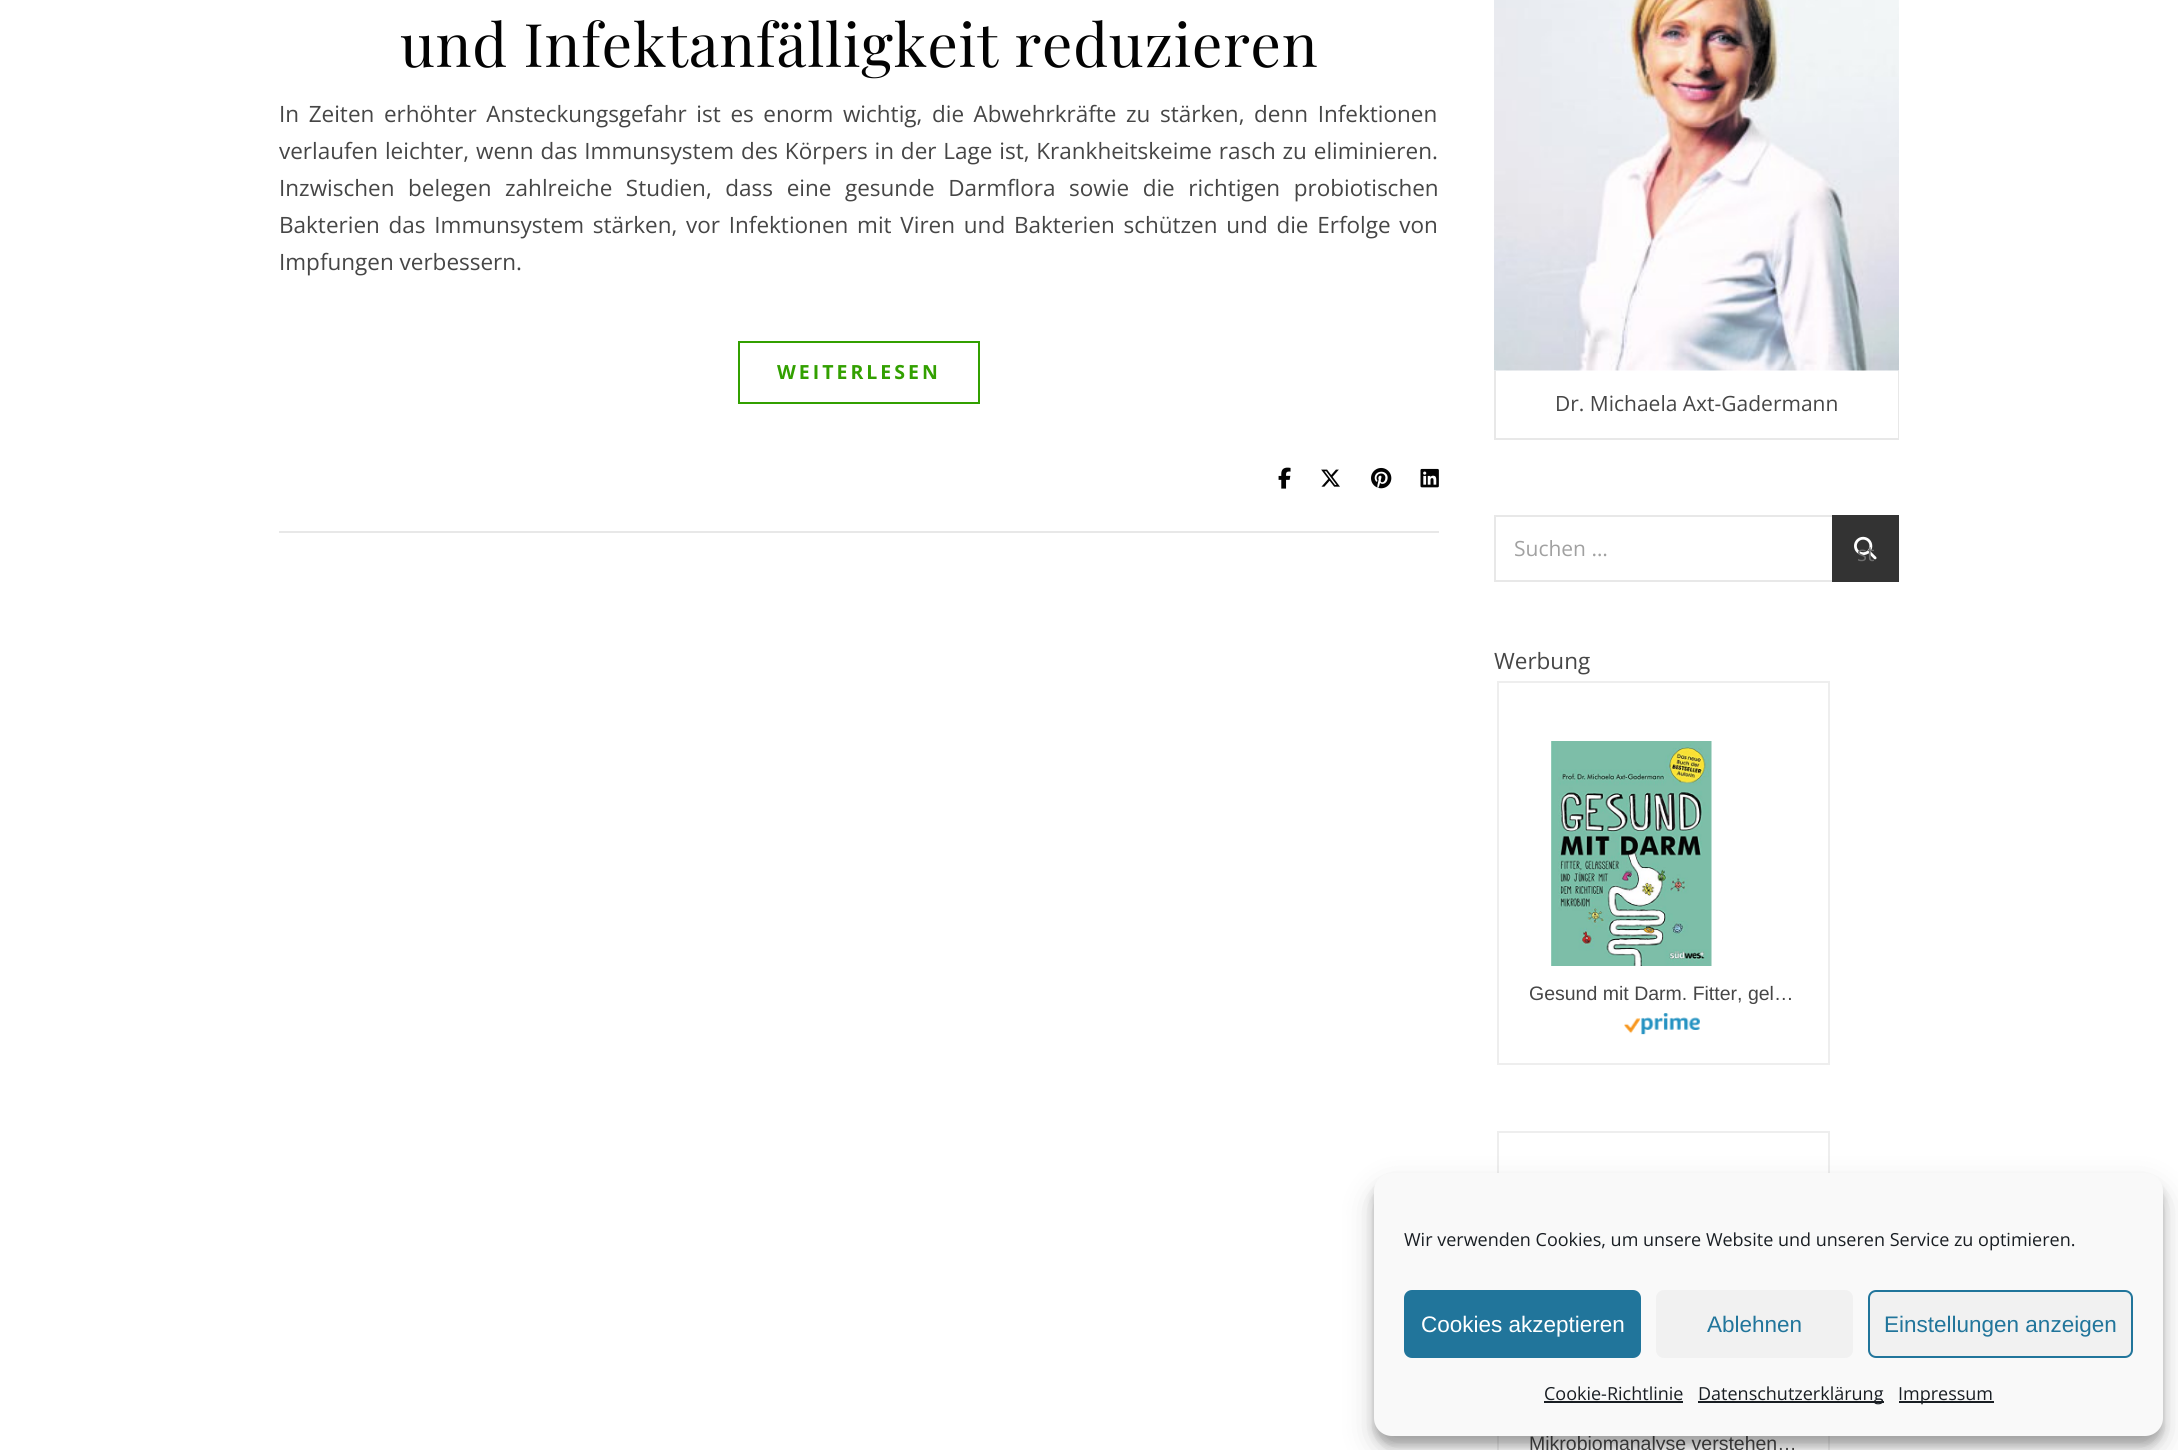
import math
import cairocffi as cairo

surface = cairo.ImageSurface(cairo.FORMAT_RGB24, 2178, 1450)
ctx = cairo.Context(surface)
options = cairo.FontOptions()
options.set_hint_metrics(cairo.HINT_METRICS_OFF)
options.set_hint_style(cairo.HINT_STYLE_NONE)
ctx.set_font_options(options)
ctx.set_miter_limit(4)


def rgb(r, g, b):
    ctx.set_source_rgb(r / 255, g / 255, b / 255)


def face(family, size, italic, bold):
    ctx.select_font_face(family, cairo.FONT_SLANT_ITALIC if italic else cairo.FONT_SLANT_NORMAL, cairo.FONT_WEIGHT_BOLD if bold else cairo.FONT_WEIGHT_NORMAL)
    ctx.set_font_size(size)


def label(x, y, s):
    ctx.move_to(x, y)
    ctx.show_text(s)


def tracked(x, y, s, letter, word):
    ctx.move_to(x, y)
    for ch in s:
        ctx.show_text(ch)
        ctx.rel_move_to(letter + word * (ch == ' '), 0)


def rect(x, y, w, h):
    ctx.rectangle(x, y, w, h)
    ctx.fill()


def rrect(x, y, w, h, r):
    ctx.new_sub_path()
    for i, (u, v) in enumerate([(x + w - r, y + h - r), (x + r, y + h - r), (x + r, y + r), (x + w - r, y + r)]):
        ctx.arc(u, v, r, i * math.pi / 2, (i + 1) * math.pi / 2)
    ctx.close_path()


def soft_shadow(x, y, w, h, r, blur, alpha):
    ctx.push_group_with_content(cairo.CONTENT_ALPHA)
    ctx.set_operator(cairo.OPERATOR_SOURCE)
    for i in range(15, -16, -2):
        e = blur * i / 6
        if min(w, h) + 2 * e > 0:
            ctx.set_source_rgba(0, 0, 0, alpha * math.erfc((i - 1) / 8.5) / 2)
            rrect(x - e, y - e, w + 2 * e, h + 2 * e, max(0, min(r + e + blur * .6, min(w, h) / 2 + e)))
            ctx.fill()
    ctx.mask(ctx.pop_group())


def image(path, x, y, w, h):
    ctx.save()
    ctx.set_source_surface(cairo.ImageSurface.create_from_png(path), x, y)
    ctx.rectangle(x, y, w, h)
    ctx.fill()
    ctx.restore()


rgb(255, 255, 255)
ctx.paint()
face('Playfair Display', 60, 0, 0)
rgb(3, 3, 3)
tracked(400, 67, 'und Infektanfälligkeit reduzieren', 0.75, 0)
face('Open Sans', 22.5, 0, 0)
rgb(70, 70, 70)
tracked(279, 122, 'In Zeiten erhöhter Ansteckungsgefahr ist es enorm wichtig, die Abwehrkräfte zu stärken, denn Infektionen', 0, 3.75)
tracked(279, 159, 'verlaufen leichter, wenn das Immunsystem des Körpers in der Lage ist, Krankheitskeime rasch zu eliminieren.', 0, 1)
tracked(279, 196, 'Inzwischen belegen zahlreiche Studien, dass eine gesunde Darmflora sowie die richtigen probiotischen', 0, 7.75)
tracked(279, 233, 'Bakterien das Immunsystem stärken, vor Infektionen mit Viren und Bakterien schützen und die Erfolge von', 0, 2.9)
label(279, 270, 'Impfungen verbessern.')
ctx.rectangle(739, 342, 240, 61)
rgb(50, 160, 0)
ctx.stroke()
face('Open Sans', 19.5, 0, 1)
tracked(777, 379, 'WEITERLESEN', 3, 0)
rgb(232, 232, 232)
rect(279, 531, 1160, 2)
image('image0.png', 1278, 467, 13, 22)
image('image1.png', 1321, 469, 19, 18)
image('image2.png', 1371, 467, 21, 22)
image('image3.png', 1420, 468, 19, 20)
image('image4.png', 1494, 0, 405, 371)
rect(1898, 371, 1, 69)
rect(1494, 438, 405, 2)
rect(1494, 371, 2, 69)
face('Open Sans', 21, 0, 0)
rgb(70, 70, 70)
label(1555, 411, 'Dr. Michaela Axt-Gadermann')
ctx.rectangle(1495, 516, 403, 65)
rgb(232, 232, 232)
ctx.stroke()
rgb(161, 161, 161)
label(1514, 556, 'Suchen …')
rgb(51, 51, 51)
rect(1832, 515, 67, 67)
image('image5.png', 1854, 536, 23, 24)
rgb(109, 109, 109)
label(1857, 561, 'st')
face('Open Sans', 22.5, 0, 0)
rgb(70, 70, 70)
label(1494, 669, 'Werbung')
ctx.rectangle(1498, 682, 331, 382)
rgb(238, 238, 238)
ctx.stroke()
image('image6.png', 1551, 741, 161, 225)
face('Liberation Sans', 19.5, 0, 0)
rgb(70, 70, 70)
label(1529, 1000, 'Gesund mit Darm. Fitter, gel…')
image('image7.png', 1624, 1013, 76, 22)
ctx.rectangle(1498, 1132, 331, 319)
rgb(238, 238, 238)
ctx.stroke()
rgb(70, 70, 70)
label(1529, 1450, 'Mikrobiomanalyse verstehen…')
rgb(0, 0, 0)
soft_shadow(1374, 1182, 789, 263, 18, 4.5, 0.23)
soft_shadow(1374, 1188, 789, 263, 18, 15, 0.19)
rgb(249, 249, 249)
rrect(1374, 1173, 789, 263, 18)
ctx.fill()
face('Open Sans', 18, 0, 0)
rgb(25, 30, 35)
label(1404, 1246, 'Wir verwenden Cookies, um unsere Website und unseren Service zu optimieren.')
rgb(33, 117, 155)
rrect(1405, 1291, 235, 66, 7)
ctx.fill_preserve()
ctx.stroke()
face('Liberation Sans', 22.5, 0, 0)
rgb(255, 255, 255)
label(1421, 1332, 'Cookies akzeptieren')
rgb(241, 241, 241)
rrect(1656, 1290, 197, 68, 8)
ctx.fill()
rgb(33, 117, 155)
label(1707, 1332, 'Ablehnen')
rgb(241, 241, 241)
rrect(1869, 1291, 263, 66, 7)
ctx.fill_preserve()
rgb(33, 117, 155)
ctx.stroke()
label(1884, 1332, 'Einstellungen anzeigen')
face('Open Sans', 18, 0, 0)
rgb(25, 30, 35)
label(1544, 1400, 'Cookie-Richtlinie')
rect(1544, 1401, 139, 2)
rect(1698, 1401, 186, 2)
label(1698, 1400, 'Datenschutzerklärung')
rect(1899, 1401, 95, 2)
label(1898, 1400, 'Impressum')
surface.write_to_png('render.png')
